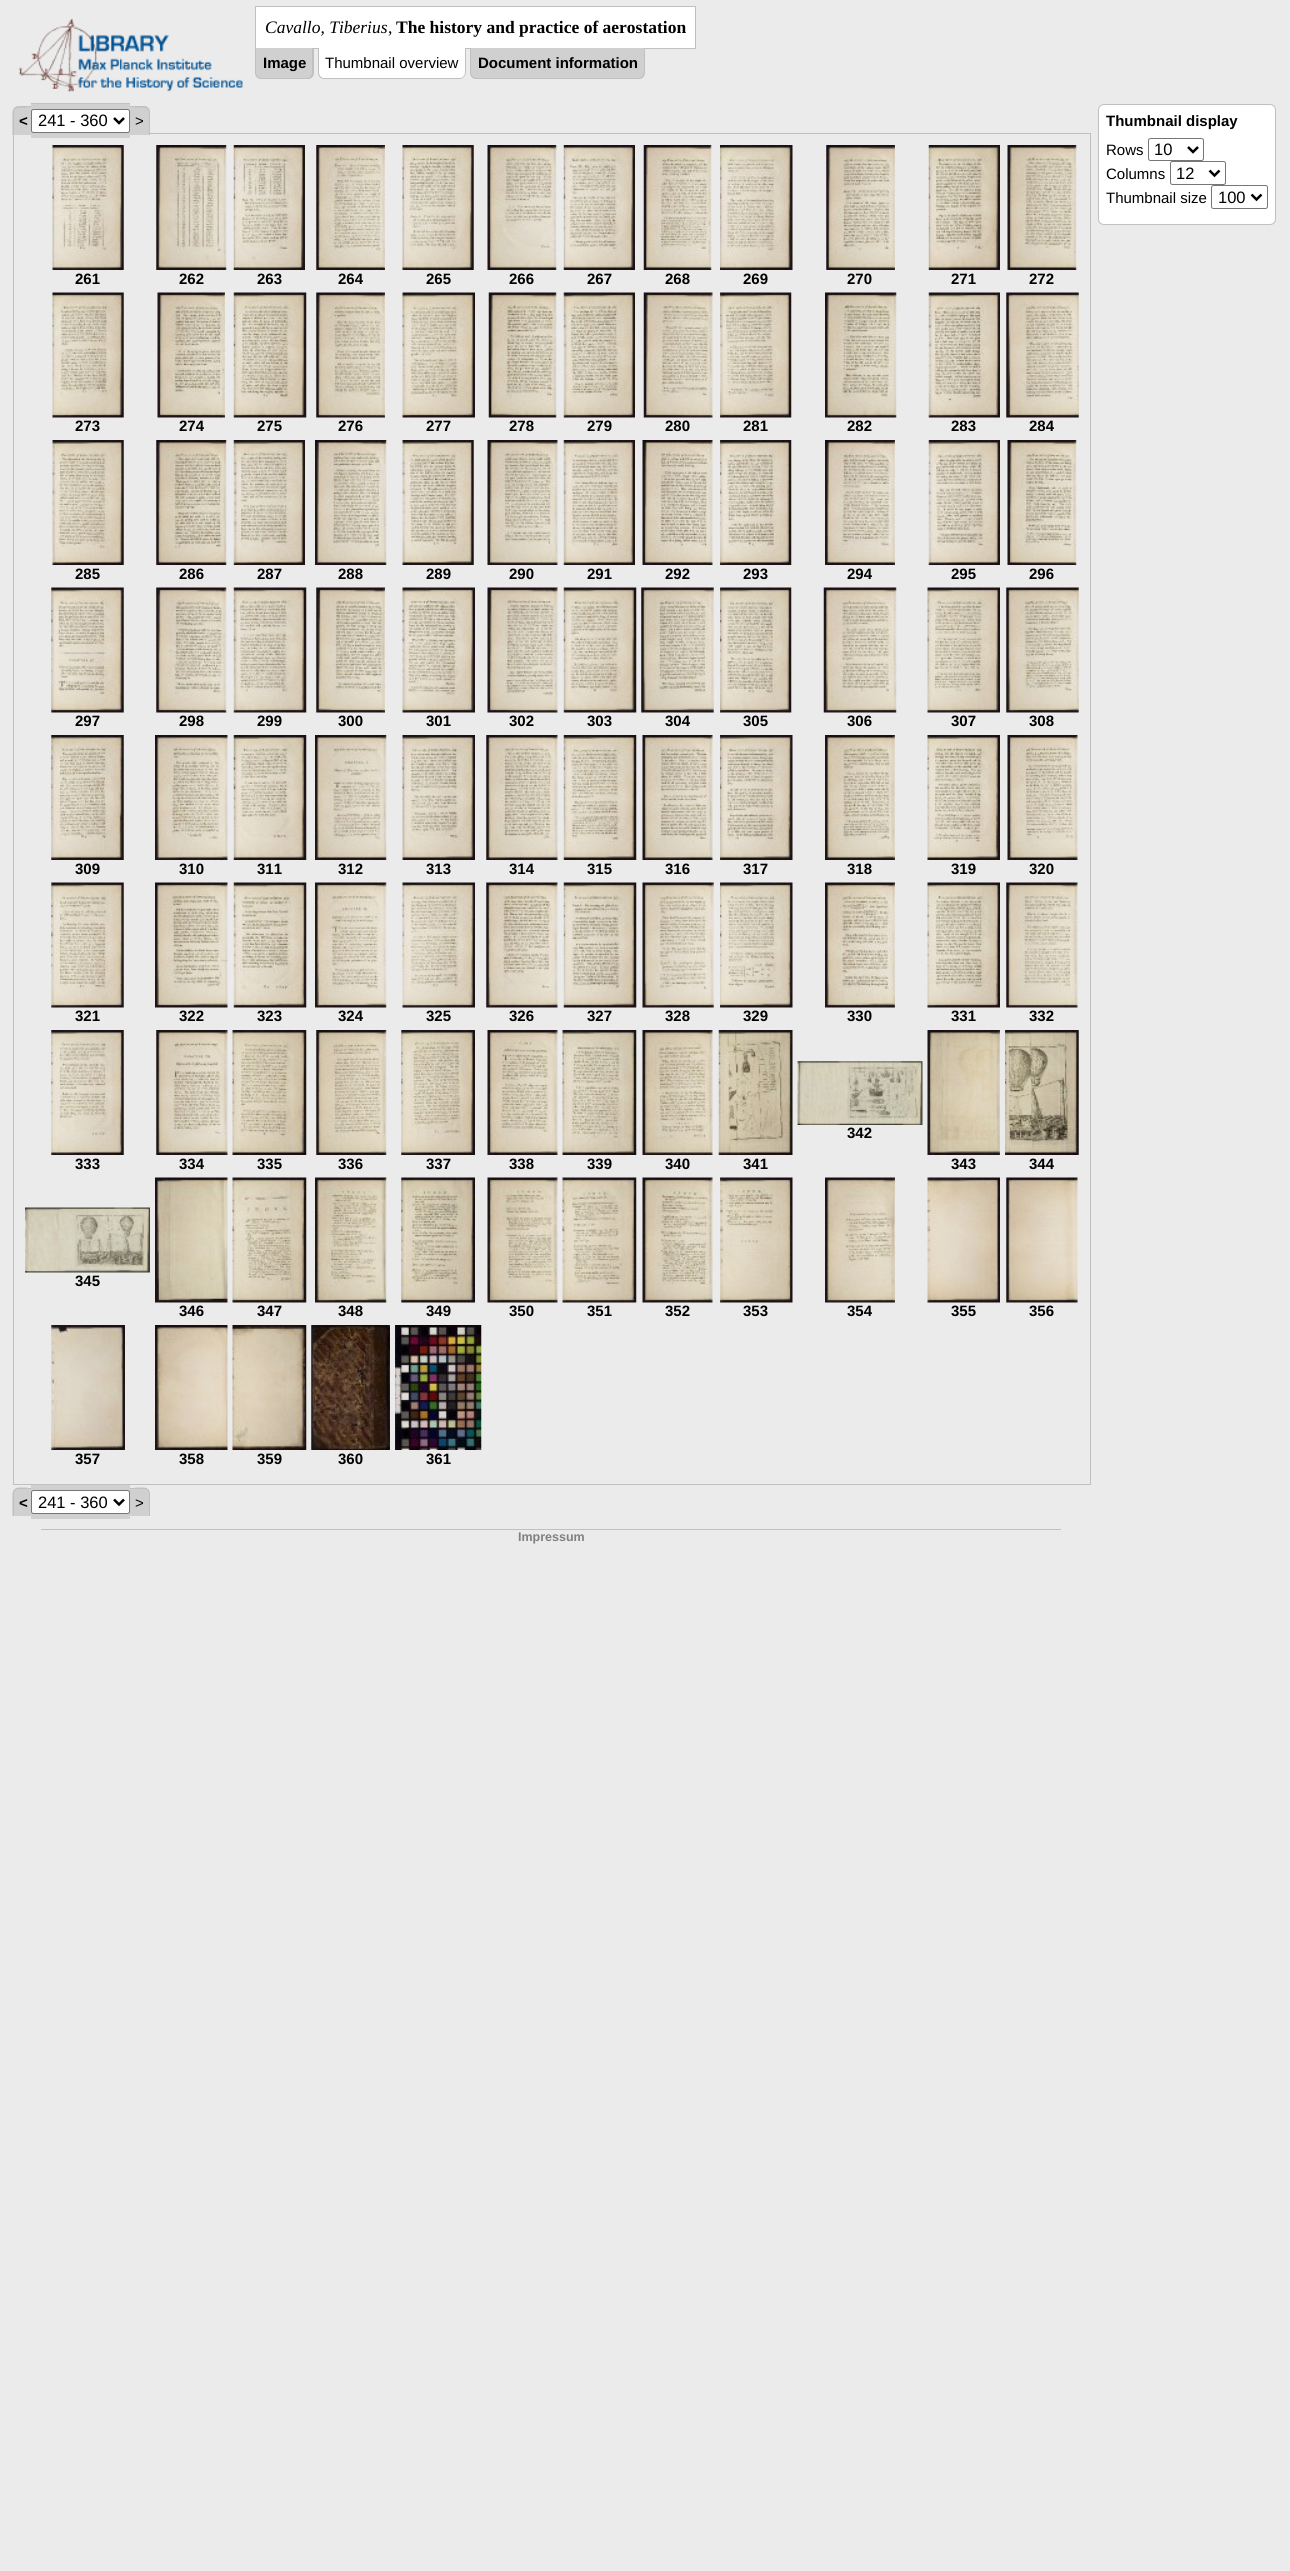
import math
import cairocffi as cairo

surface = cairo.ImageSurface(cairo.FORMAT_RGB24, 1290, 2571)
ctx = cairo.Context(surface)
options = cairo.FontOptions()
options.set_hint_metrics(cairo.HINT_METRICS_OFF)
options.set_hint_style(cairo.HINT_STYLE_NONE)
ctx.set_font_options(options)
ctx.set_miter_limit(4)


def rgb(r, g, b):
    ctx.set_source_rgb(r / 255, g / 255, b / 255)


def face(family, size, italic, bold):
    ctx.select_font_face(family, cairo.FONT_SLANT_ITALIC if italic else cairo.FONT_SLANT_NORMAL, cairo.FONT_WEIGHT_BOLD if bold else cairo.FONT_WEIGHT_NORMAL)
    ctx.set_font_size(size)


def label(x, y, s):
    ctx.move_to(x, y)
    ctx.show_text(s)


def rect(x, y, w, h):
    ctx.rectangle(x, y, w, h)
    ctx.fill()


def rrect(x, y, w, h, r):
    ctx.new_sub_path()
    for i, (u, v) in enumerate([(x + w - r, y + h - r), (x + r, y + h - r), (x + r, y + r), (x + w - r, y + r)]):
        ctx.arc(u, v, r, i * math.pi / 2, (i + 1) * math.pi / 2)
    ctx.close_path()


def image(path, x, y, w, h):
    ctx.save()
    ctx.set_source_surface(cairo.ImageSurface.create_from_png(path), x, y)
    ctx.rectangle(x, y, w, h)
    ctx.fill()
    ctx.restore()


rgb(235, 235, 235)
ctx.paint()
image('image0.png', 18, 18, 225, 74)
rgb(255, 255, 255)
ctx.rectangle(255.5, 6.5, 440, 42)
ctx.fill_preserve()
rgb(192, 192, 192)
ctx.set_line_width(1)
ctx.stroke()
face('Liberation Serif', 17.5, 1, 0)
rgb(0, 0, 0)
label(265, 33, 'Cavallo, Tiberius')
face('Liberation Serif', 17.5, 0, 0)
label(388, 33, ',')
face('Liberation Serif', 17.5, 0, 1)
label(396, 33, 'The history and practice of aerostation')
rgb(208, 208, 208)
ctx.new_path()
ctx.move_to(255, 48)
ctx.line_to(314, 48)
ctx.line_to(314, 73)
ctx.curve_to(314, 76.5, 311.5, 79, 308, 79)
ctx.line_to(261, 79)
ctx.curve_to(257.5, 79, 255, 76.5, 255, 73)
ctx.close_path()
ctx.fill()
rgb(192, 192, 192)
ctx.set_fill_rule(cairo.FILL_RULE_EVEN_ODD)
ctx.new_path()
ctx.move_to(255, 48)
ctx.line_to(314, 48)
ctx.line_to(314, 72)
ctx.curve_to(314, 76, 311, 79, 308, 79)
ctx.line_to(261, 79)
ctx.curve_to(258, 79, 255, 76, 255, 72)
ctx.close_path()
ctx.move_to(256, 48)
ctx.line_to(312, 48)
ctx.line_to(312, 72)
ctx.curve_to(312, 75, 310, 78, 308, 78)
ctx.line_to(261, 78)
ctx.curve_to(258, 78, 256, 75, 256, 72)
ctx.close_path()
ctx.fill()
face('Liberation Sans', 15, 0, 1)
rgb(0, 0, 0)
label(263, 68, 'Image')
rgb(255, 255, 255)
ctx.new_path()
ctx.move_to(318, 48)
ctx.line_to(466, 48)
ctx.line_to(466, 73)
ctx.curve_to(466, 76.5, 463.5, 79, 460, 79)
ctx.line_to(324, 79)
ctx.curve_to(320.5, 79, 318, 76.5, 318, 73)
ctx.close_path()
ctx.fill()
rgb(192, 192, 192)
ctx.new_path()
ctx.move_to(318, 48)
ctx.line_to(466, 48)
ctx.line_to(466, 72)
ctx.curve_to(466, 76, 463, 79, 460, 79)
ctx.line_to(324, 79)
ctx.curve_to(320, 79, 318, 76, 318, 72)
ctx.close_path()
ctx.move_to(319, 48)
ctx.line_to(465, 48)
ctx.line_to(465, 72)
ctx.curve_to(465, 75, 463, 78, 460, 78)
ctx.line_to(324, 78)
ctx.curve_to(321, 78, 319, 75, 319, 72)
ctx.close_path()
ctx.fill()
face('Liberation Sans', 15, 0, 0)
rgb(0, 0, 0)
label(325, 68, 'Thumbnail overview')
rgb(208, 208, 208)
ctx.new_path()
ctx.move_to(470, 48)
ctx.line_to(645, 48)
ctx.line_to(645, 73)
ctx.curve_to(645, 76.5, 642.5, 79, 639, 79)
ctx.line_to(476, 79)
ctx.curve_to(472.5, 79, 470, 76.5, 470, 73)
ctx.close_path()
ctx.fill()
rgb(192, 192, 192)
ctx.new_path()
ctx.move_to(470, 48)
ctx.line_to(645, 48)
ctx.line_to(645, 72)
ctx.curve_to(645, 76, 642, 79, 639, 79)
ctx.line_to(476, 79)
ctx.curve_to(473, 79, 470, 76, 470, 72)
ctx.close_path()
ctx.move_to(471, 48)
ctx.line_to(644, 48)
ctx.line_to(644, 72)
ctx.curve_to(644, 75, 642, 78, 639, 78)
ctx.line_to(476, 78)
ctx.curve_to(473, 78, 471, 75, 471, 72)
ctx.close_path()
ctx.fill()
face('Liberation Sans', 15, 0, 1)
rgb(0, 0, 0)
label(478, 68, 'Document information')
ctx.rectangle(13.5, 133.5, 1077, 1351)
rgb(192, 192, 192)
ctx.stroke()
rgb(208, 208, 208)
ctx.new_path()
ctx.move_to(19, 106)
ctx.line_to(28, 106)
ctx.line_to(28, 135)
ctx.line_to(13, 135)
ctx.line_to(13, 112)
ctx.curve_to(13, 108.5, 15.5, 106, 19, 106)
ctx.close_path()
ctx.fill()
rgb(192, 192, 192)
ctx.new_path()
ctx.move_to(19, 106)
ctx.line_to(27.5, 106)
ctx.line_to(27.5, 135)
ctx.line_to(12.5, 135)
ctx.line_to(12.5, 112.5)
ctx.curve_to(12.5, 109, 15.5, 106, 19, 106)
ctx.close_path()
ctx.move_to(19, 107.5)
ctx.line_to(27.5, 107.5)
ctx.line_to(27.5, 135)
ctx.line_to(14, 135)
ctx.line_to(14, 112.5)
ctx.curve_to(14, 109.5, 16, 107.5, 19, 107.5)
ctx.close_path()
ctx.fill()
rgb(208, 208, 208)
rect(28, 106, 3, 29)
rgb(192, 192, 192)
rect(28, 106, 4, 1)
rgb(208, 208, 208)
rect(31, 104, 99, 34)
rgb(192, 192, 192)
rect(31, 103, 99, 1)
rgb(208, 208, 208)
rect(130, 106, 5, 29)
rgb(192, 192, 192)
rect(130, 106, 5, 1)
rgb(208, 208, 208)
ctx.new_path()
ctx.move_to(135, 106)
ctx.line_to(144, 106)
ctx.curve_to(147.5, 106, 150, 108.5, 150, 112)
ctx.line_to(150, 135)
ctx.line_to(135, 135)
ctx.close_path()
ctx.fill()
rgb(192, 192, 192)
ctx.new_path()
ctx.move_to(135, 106)
ctx.line_to(144, 106)
ctx.curve_to(147, 106, 150, 109, 150, 112.5)
ctx.line_to(150, 135)
ctx.line_to(135, 135)
ctx.close_path()
ctx.move_to(135, 107.5)
ctx.line_to(144, 107.5)
ctx.curve_to(146.5, 107.5, 149, 109.5, 149, 112.5)
ctx.line_to(149, 135)
ctx.line_to(135, 135)
ctx.close_path()
ctx.fill()
rgb(0, 0, 0)
label(19, 126, '<')
rgb(255, 255, 255)
rrect(31.5, 109.5, 98, 23, 2)
ctx.fill_preserve()
rgb(118, 118, 118)
ctx.stroke()
ctx.new_path()
ctx.move_to(114, 118)
ctx.line_to(119, 123)
ctx.line_to(124, 118)
rgb(0, 0, 0)
ctx.set_line_width(2.5)
ctx.stroke()
face('Liberation Sans', 16.5, 0, 0)
label(38, 126, '241 - 360')
face('Liberation Sans', 15, 0, 0)
label(135, 126, '>')
image('image1.png', 52, 145, 72, 125)
face('Liberation Sans', 15, 0, 1)
label(75, 284, '261')
image('image2.png', 156, 145, 71, 125)
label(179, 284, '262')
image('image3.png', 233, 145, 72, 125)
label(257, 284, '263')
image('image4.png', 316, 145, 69, 125)
label(338, 284, '264')
image('image5.png', 402, 145, 72, 125)
label(426, 284, '265')
image('image6.png', 487, 145, 70, 125)
label(509, 284, '266')
image('image7.png', 563, 145, 72, 125)
label(587, 284, '267')
image('image8.png', 643, 145, 69, 125)
label(665, 284, '268')
image('image9.png', 720, 145, 73, 125)
label(743, 284, '269')
image('image10.png', 826, 145, 69, 125)
label(847, 284, '270')
image('image11.png', 928, 145, 72, 125)
label(951, 284, '271')
image('image12.png', 1007, 145, 70, 125)
label(1029, 284, '272')
image('image13.png', 52, 292, 72, 126)
label(75, 431, '273')
image('image14.png', 157, 292, 68, 126)
label(179, 431, '274')
image('image15.png', 233, 292, 74, 126)
label(257, 431, '275')
image('image16.png', 316, 292, 69, 126)
label(338, 431, '276')
image('image17.png', 402, 292, 73, 126)
label(426, 431, '277')
image('image18.png', 488, 292, 69, 126)
label(509, 431, '278')
image('image19.png', 563, 292, 72, 126)
label(587, 431, '279')
image('image20.png', 643, 292, 70, 126)
label(665, 431, '280')
image('image21.png', 720, 292, 72, 126)
label(743, 431, '281')
image('image22.png', 825, 292, 72, 126)
label(847, 431, '282')
image('image23.png', 928, 292, 72, 126)
label(951, 431, '283')
image('image24.png', 1006, 292, 73, 126)
label(1029, 431, '284')
image('image25.png', 52, 440, 72, 125)
label(75, 579, '285')
image('image26.png', 156, 440, 71, 125)
label(179, 579, '286')
image('image27.png', 233, 440, 72, 125)
label(257, 579, '287')
image('image28.png', 315, 440, 72, 125)
label(338, 579, '288')
image('image29.png', 402, 440, 72, 125)
label(426, 579, '289')
image('image30.png', 487, 440, 71, 125)
label(509, 579, '290')
image('image31.png', 563, 440, 72, 125)
label(587, 579, '291')
image('image32.png', 642, 440, 71, 125)
label(665, 579, '292')
image('image33.png', 720, 440, 72, 125)
label(743, 579, '293')
image('image34.png', 825, 440, 70, 125)
label(847, 579, '294')
image('image35.png', 928, 440, 72, 125)
label(951, 579, '295')
image('image36.png', 1007, 440, 70, 125)
label(1029, 579, '296')
image('image37.png', 51, 587, 73, 126)
label(75, 726, '297')
image('image38.png', 156, 587, 71, 126)
label(179, 726, '298')
image('image39.png', 233, 587, 74, 126)
label(257, 726, '299')
image('image40.png', 316, 587, 69, 126)
label(338, 726, '300')
image('image41.png', 402, 587, 73, 126)
label(426, 726, '301')
image('image42.png', 487, 587, 71, 126)
label(509, 726, '302')
image('image43.png', 563, 587, 74, 126)
label(587, 726, '303')
image('image44.png', 641, 587, 73, 126)
label(665, 726, '304')
image('image45.png', 720, 587, 72, 126)
label(743, 726, '305')
image('image46.png', 823, 587, 74, 126)
label(847, 726, '306')
image('image47.png', 927, 587, 73, 126)
label(951, 726, '307')
image('image48.png', 1006, 587, 73, 126)
label(1029, 726, '308')
image('image49.png', 51, 735, 73, 125)
label(75, 874, '309')
image('image50.png', 155, 735, 73, 125)
label(179, 874, '310')
image('image51.png', 233, 735, 74, 125)
label(257, 874, '311')
image('image52.png', 315, 735, 72, 125)
label(338, 874, '312')
image('image53.png', 402, 735, 73, 125)
label(426, 874, '313')
image('image54.png', 486, 735, 72, 125)
label(509, 874, '314')
image('image55.png', 563, 735, 74, 125)
label(587, 874, '315')
image('image56.png', 642, 735, 71, 125)
label(665, 874, '316')
image('image57.png', 720, 735, 73, 125)
label(743, 874, '317')
image('image58.png', 825, 735, 70, 125)
label(847, 874, '318')
image('image59.png', 927, 735, 73, 125)
label(951, 874, '319')
image('image60.png', 1007, 735, 71, 125)
label(1029, 874, '320')
image('image61.png', 51, 882, 73, 126)
label(75, 1021, '321')
image('image62.png', 155, 882, 73, 126)
label(179, 1021, '322')
image('image63.png', 233, 882, 74, 126)
label(257, 1021, '323')
image('image64.png', 315, 882, 72, 126)
label(338, 1021, '324')
image('image65.png', 402, 882, 73, 126)
label(426, 1021, '325')
image('image66.png', 486, 882, 72, 126)
label(509, 1021, '326')
image('image67.png', 563, 882, 74, 126)
label(587, 1021, '327')
image('image68.png', 642, 882, 72, 126)
label(665, 1021, '328')
image('image69.png', 720, 882, 73, 126)
label(743, 1021, '329')
image('image70.png', 825, 882, 70, 126)
label(847, 1021, '330')
image('image71.png', 927, 882, 73, 126)
label(951, 1021, '331')
image('image72.png', 1006, 882, 72, 126)
label(1029, 1021, '332')
image('image73.png', 797, 1061, 126, 64)
label(847, 1138, '342')
image('image74.png', 51, 1030, 73, 125)
label(75, 1169, '333')
image('image75.png', 156, 1030, 72, 125)
label(179, 1169, '334')
image('image76.png', 232, 1030, 75, 125)
label(257, 1169, '335')
image('image77.png', 316, 1030, 71, 125)
label(338, 1169, '336')
image('image78.png', 401, 1030, 74, 125)
label(426, 1169, '337')
image('image79.png', 487, 1030, 71, 125)
label(509, 1169, '338')
image('image80.png', 562, 1030, 75, 125)
label(587, 1169, '339')
image('image81.png', 642, 1030, 71, 125)
label(665, 1169, '340')
image('image82.png', 718, 1030, 75, 125)
label(743, 1169, '341')
image('image83.png', 927, 1030, 73, 125)
label(951, 1169, '343')
image('image84.png', 1005, 1030, 74, 125)
label(1029, 1169, '344')
image('image85.png', 25, 1207, 125, 66)
label(75, 1286, '345')
image('image86.png', 155, 1177, 73, 126)
label(179, 1316, '346')
image('image87.png', 232, 1177, 75, 126)
label(257, 1316, '347')
image('image88.png', 315, 1177, 72, 126)
label(338, 1316, '348')
image('image89.png', 401, 1177, 74, 126)
label(426, 1316, '349')
image('image90.png', 487, 1177, 71, 126)
label(509, 1316, '350')
image('image91.png', 562, 1177, 75, 126)
label(587, 1316, '351')
image('image92.png', 642, 1177, 71, 126)
label(665, 1316, '352')
image('image93.png', 720, 1177, 73, 126)
label(743, 1316, '353')
image('image94.png', 825, 1177, 70, 126)
label(847, 1316, '354')
image('image95.png', 927, 1177, 73, 126)
label(951, 1316, '355')
image('image96.png', 1006, 1177, 72, 126)
label(1029, 1316, '356')
image('image97.png', 51, 1325, 74, 125)
label(75, 1464, '357')
image('image98.png', 155, 1325, 73, 125)
label(179, 1464, '358')
image('image99.png', 232, 1325, 75, 125)
label(257, 1464, '359')
image('image100.png', 311, 1325, 79, 125)
label(338, 1464, '360')
image('image101.png', 395, 1325, 87, 125)
label(426, 1464, '361')
rgb(208, 208, 208)
ctx.new_path()
ctx.move_to(19, 1488)
ctx.line_to(28, 1488)
ctx.line_to(28, 1516)
ctx.line_to(13, 1516)
ctx.line_to(13, 1494)
ctx.curve_to(13, 1490.5, 15.5, 1488, 19, 1488)
ctx.close_path()
ctx.fill()
rgb(192, 192, 192)
ctx.new_path()
ctx.move_to(19, 1487.5)
ctx.line_to(27.5, 1487.5)
ctx.line_to(27.5, 1516)
ctx.line_to(12.5, 1516)
ctx.line_to(12.5, 1494)
ctx.curve_to(12.5, 1490.5, 15.5, 1487.5, 19, 1487.5)
ctx.close_path()
ctx.move_to(19, 1489)
ctx.line_to(27.5, 1489)
ctx.line_to(27.5, 1516)
ctx.line_to(14, 1516)
ctx.line_to(14, 1494)
ctx.curve_to(14, 1491, 16, 1489, 19, 1489)
ctx.close_path()
ctx.fill()
rgb(208, 208, 208)
rect(28, 1488, 3, 28)
rgb(192, 192, 192)
rect(28, 1488, 4, 1)
rgb(208, 208, 208)
rect(31, 1485, 99, 34)
rect(130, 1488, 5, 28)
rgb(192, 192, 192)
rect(130, 1488, 5, 1)
rgb(208, 208, 208)
ctx.new_path()
ctx.move_to(135, 1488)
ctx.line_to(144, 1488)
ctx.curve_to(147.5, 1488, 150, 1490.5, 150, 1494)
ctx.line_to(150, 1516)
ctx.line_to(135, 1516)
ctx.close_path()
ctx.fill()
rgb(192, 192, 192)
ctx.new_path()
ctx.move_to(135, 1487.5)
ctx.line_to(144, 1487.5)
ctx.curve_to(147, 1487.5, 150, 1490.5, 150, 1494)
ctx.line_to(150, 1516)
ctx.line_to(135, 1516)
ctx.close_path()
ctx.move_to(135, 1489)
ctx.line_to(144, 1489)
ctx.curve_to(146.5, 1489, 149, 1491, 149, 1494)
ctx.line_to(149, 1516)
ctx.line_to(135, 1516)
ctx.close_path()
ctx.fill()
rgb(0, 0, 0)
label(19, 1508, '<')
rgb(255, 255, 255)
rrect(31.5, 1490.5, 98, 23, 2)
ctx.fill_preserve()
rgb(118, 118, 118)
ctx.set_line_width(1)
ctx.stroke()
ctx.new_path()
ctx.move_to(114, 1499.5)
ctx.line_to(119, 1504.5)
ctx.line_to(124, 1499.5)
rgb(0, 0, 0)
ctx.set_line_width(2.5)
ctx.stroke()
face('Liberation Sans', 16.5, 0, 0)
label(38, 1508, '241 - 360')
face('Liberation Sans', 15, 0, 0)
label(135, 1508, '>')
rgb(255, 255, 255)
rrect(1098.5, 104.5, 177, 120, 5.5)
ctx.fill_preserve()
rgb(192, 192, 192)
ctx.set_line_width(1)
ctx.stroke()
face('Liberation Sans', 15, 0, 1)
rgb(0, 0, 0)
label(1106, 126, 'Thumbnail display')
face('Liberation Sans', 15, 0, 0)
label(1106, 155, 'Rows')
rrect(1148.5, 138.5, 55, 22, 2)
rgb(118, 118, 118)
ctx.stroke()
ctx.new_path()
ctx.move_to(1188, 147)
ctx.line_to(1193, 152)
ctx.line_to(1198, 147)
rgb(0, 0, 0)
ctx.set_line_width(2.5)
ctx.stroke()
face('Liberation Sans', 16.5, 0, 0)
label(1154, 155, '10')
face('Liberation Sans', 15, 0, 0)
label(1106, 179, 'Columns')
rrect(1170.5, 161.5, 55, 23, 2)
rgb(118, 118, 118)
ctx.set_line_width(1)
ctx.stroke()
ctx.new_path()
ctx.move_to(1209.5, 170.5)
ctx.line_to(1214.5, 175.5)
ctx.line_to(1219.5, 170.5)
rgb(0, 0, 0)
ctx.set_line_width(2.5)
ctx.stroke()
face('Liberation Sans', 16.5, 0, 0)
label(1176, 179, '12')
face('Liberation Sans', 15, 0, 0)
label(1106, 203, 'Thumbnail size')
rrect(1211.5, 185.5, 56, 23, 2)
rgb(118, 118, 118)
ctx.set_line_width(1)
ctx.stroke()
ctx.new_path()
ctx.move_to(1251.5, 194.5)
ctx.line_to(1256.5, 199.5)
ctx.line_to(1261.5, 194.5)
rgb(0, 0, 0)
ctx.set_line_width(2.5)
ctx.stroke()
face('Liberation Sans', 16.5, 0, 0)
label(1218, 203, '100')
rgb(192, 192, 192)
rect(41, 1529, 1020, 1)
face('Liberation Sans', 12.5, 0, 1)
rgb(128, 128, 128)
label(518, 1541, 'Impressum')
surface.write_to_png('render.png')
